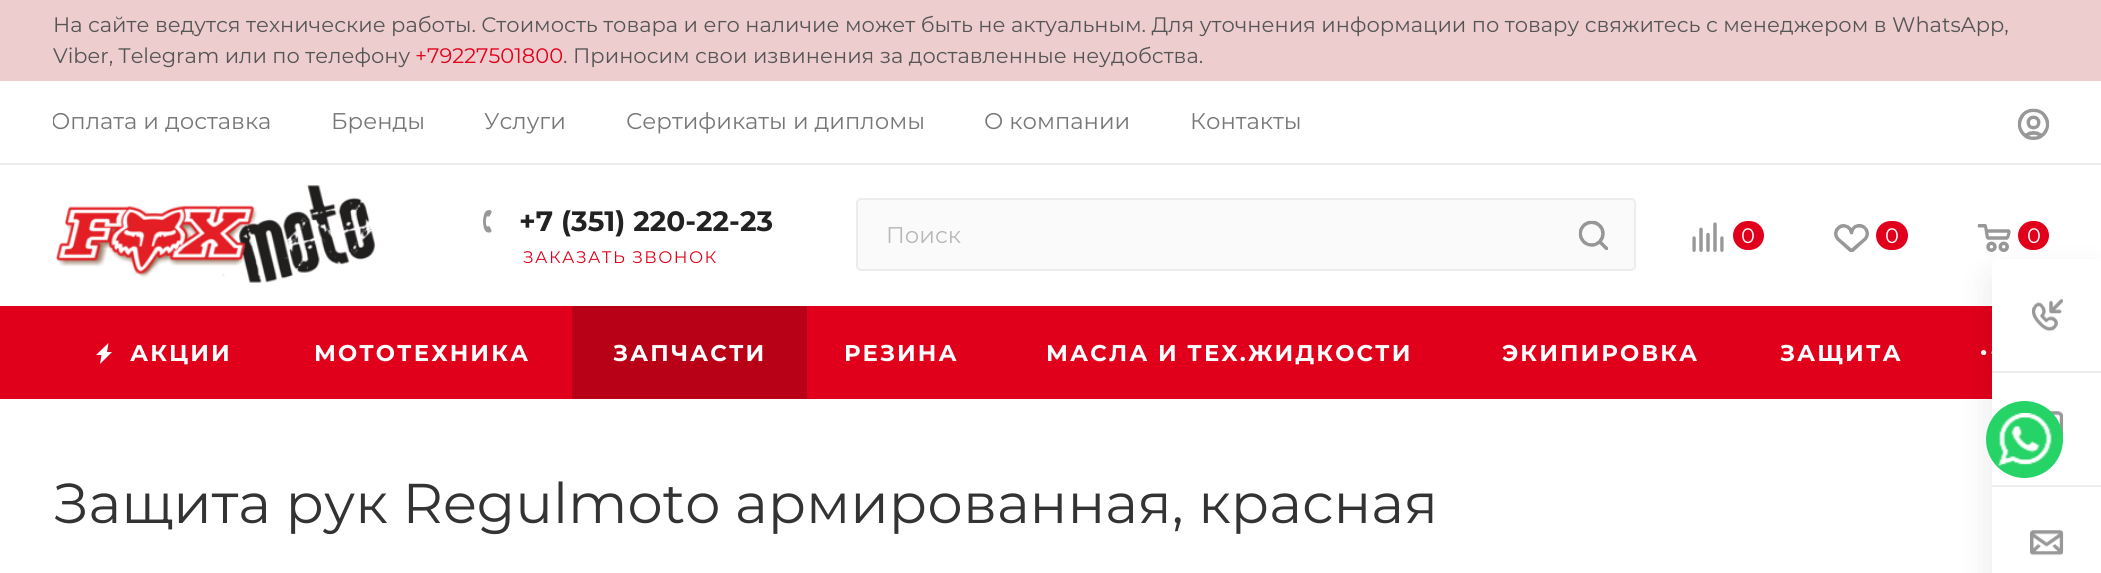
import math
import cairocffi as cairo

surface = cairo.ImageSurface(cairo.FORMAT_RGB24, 2101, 573)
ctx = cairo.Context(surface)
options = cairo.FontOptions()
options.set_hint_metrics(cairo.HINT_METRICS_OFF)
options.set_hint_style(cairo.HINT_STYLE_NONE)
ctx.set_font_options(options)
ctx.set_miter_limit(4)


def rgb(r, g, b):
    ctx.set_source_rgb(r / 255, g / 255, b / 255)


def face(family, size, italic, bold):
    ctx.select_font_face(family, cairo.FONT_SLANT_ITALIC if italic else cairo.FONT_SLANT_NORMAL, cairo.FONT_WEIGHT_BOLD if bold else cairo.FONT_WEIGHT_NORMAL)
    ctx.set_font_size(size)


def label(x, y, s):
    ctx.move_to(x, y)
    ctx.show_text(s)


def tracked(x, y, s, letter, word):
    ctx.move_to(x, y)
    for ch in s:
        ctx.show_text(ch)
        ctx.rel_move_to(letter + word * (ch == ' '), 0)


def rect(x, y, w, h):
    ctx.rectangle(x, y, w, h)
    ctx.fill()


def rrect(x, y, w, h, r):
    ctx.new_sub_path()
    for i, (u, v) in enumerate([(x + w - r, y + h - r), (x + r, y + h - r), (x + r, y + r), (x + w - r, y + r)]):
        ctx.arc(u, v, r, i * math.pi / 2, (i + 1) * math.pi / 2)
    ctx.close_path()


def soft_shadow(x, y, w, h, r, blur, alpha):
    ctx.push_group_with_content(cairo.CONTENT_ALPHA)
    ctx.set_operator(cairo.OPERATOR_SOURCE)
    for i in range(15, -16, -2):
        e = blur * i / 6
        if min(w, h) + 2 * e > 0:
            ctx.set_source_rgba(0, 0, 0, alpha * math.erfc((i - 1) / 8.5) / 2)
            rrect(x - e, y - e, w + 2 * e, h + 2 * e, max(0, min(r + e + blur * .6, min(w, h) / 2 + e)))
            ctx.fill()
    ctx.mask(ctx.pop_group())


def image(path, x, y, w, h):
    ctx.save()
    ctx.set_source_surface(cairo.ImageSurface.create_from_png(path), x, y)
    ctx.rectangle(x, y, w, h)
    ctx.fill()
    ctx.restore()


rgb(255, 255, 255)
ctx.paint()
rgb(237, 205, 205)
rect(0, 0, 2101, 81)
face('Montserrat', 21, 0, 0)
rgb(85, 85, 85)
label(53, 32, 'На сайте ведутся технические работы. Стоимость товара и его наличие может быть не актуальным. Для уточнения информации по товару свяжитесь с менеджером в WhatsApp,')
label(53, 63, 'Viber, Telegram или по телефону')
rgb(225, 0, 27)
label(415, 63, '+79227501800')
rgb(85, 85, 85)
label(563, 63, '. Приносим свои извинения за доставленные неудобства.')
rgb(236, 236, 236)
rect(0, 163, 2101, 2)
ctx.save()
ctx.rectangle(53, 82, 1249, 79)
ctx.clip()
face('Montserrat', 22.75, 0, 0)
rgb(119, 119, 119)
label(51, 129, 'Оплата и доставка')
ctx.restore()
face('Montserrat', 22.75, 0, 0)
rgb(119, 119, 119)
label(331, 129, 'Бренды')
label(484, 129, 'Услуги')
label(626, 129, 'Сертификаты и дипломы')
label(984, 129, 'О компании')
label(1190, 129, 'Контакты')
image('image0.png', 2017, 108, 33, 32)
image('image1.png', 55, 185, 321, 98)
image('image2.png', 483, 210, 9, 23)
face('Montserrat', 28, 0, 1)
rgb(34, 34, 34)
label(519, 231, '+7 (351) 220-22-23')
face('Montserrat', 16.75, 0, 0)
rgb(225, 0, 27)
tracked(523, 263, 'ЗАКАЗАТЬ ЗВОНОК', 1.4, 0)
rgb(250, 250, 250)
rrect(857, 199, 778, 71, 4)
ctx.fill_preserve()
rgb(236, 236, 236)
ctx.stroke()
face('Montserrat', 22.75, 0, 0)
rgb(184, 184, 184)
label(886, 243, 'Поиск')
image('image3.png', 1578, 220, 30, 30)
image('image4.png', 1692, 222, 32, 30)
rgb(225, 0, 27)
rrect(1733, 221, 31, 29, 14.5)
ctx.fill()
face('Montserrat', 21, 0, 0)
rgb(255, 255, 255)
label(1741, 243, '0')
image('image5.png', 1834, 224, 35, 28)
rgb(225, 0, 27)
rrect(1876, 221, 32, 29, 14.5)
ctx.fill()
rgb(255, 255, 255)
label(1885, 243, '0')
image('image6.png', 1977, 224, 34, 28)
rgb(225, 0, 27)
rrect(2018, 221, 31, 29, 14.5)
ctx.fill()
rgb(255, 255, 255)
label(2027, 243, '0')
rgb(225, 0, 27)
rect(0, 306, 1992, 93)
rgb(255, 255, 255)
ctx.set_fill_rule(cairo.FILL_RULE_EVEN_ODD)
ctx.new_path()
ctx.move_to(108.5, 343)
ctx.line_to(96, 355)
ctx.line_to(101.5, 355)
ctx.line_to(100, 364)
ctx.line_to(112, 352)
ctx.line_to(107, 352)
ctx.close_path()
ctx.fill()
face('Montserrat', 22.75, 0, 1)
tracked(130, 361, 'АКЦИИ', 2.1, 0)
tracked(314, 361, 'МОТОТЕХНИКА', 2.1, 0)
rgb(184, 0, 22)
rect(572, 306, 235, 93)
rgb(255, 255, 255)
tracked(613, 361, 'ЗАПЧАСТИ', 2.1, 0)
tracked(844, 361, 'РЕЗИНА', 2.1, 0)
tracked(1046, 361, 'МАСЛА И ТЕХ.ЖИДКОСТИ', 2.1, 0)
tracked(1502, 361, 'ЭКИПИРОВКА', 2.1, 0)
tracked(1780, 361, 'ЗАЩИТА', 2.1, 0)
image('image7.png', 1981, 350, 11, 5)
face('Montserrat', 56, 0, 0)
rgb(51, 51, 51)
label(53, 523, 'Защита рук Regulmoto армированная, красная')
rgb(0, 0, 0)
soft_shadow(1992, 277, 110, 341, 7, 17.5, 0.1)
rgb(255, 255, 255)
ctx.new_path()
ctx.move_to(1999, 259)
ctx.line_to(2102, 259)
ctx.line_to(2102, 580)
ctx.line_to(1999, 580)
ctx.curve_to(1995, 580, 1992, 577, 1992, 573)
ctx.line_to(1992, 266)
ctx.curve_to(1992, 262, 1995, 259, 1999, 259)
ctx.close_path()
ctx.fill()
rgb(236, 236, 236)
rect(1992, 371, 109, 2)
image('image8.png', 2031, 299, 32, 33)
rect(1992, 485, 109, 2)
image('image9.png', 2050, 411, 14, 27)
image('image10.png', 2030, 530, 34, 26)
rgb(37, 211, 102)
ctx.arc(2024.5, 439.5, 38.5, 0, 2 * math.pi)
ctx.fill()
image('image11.png', 1998, 413, 54, 53)
surface.write_to_png('render.png')
